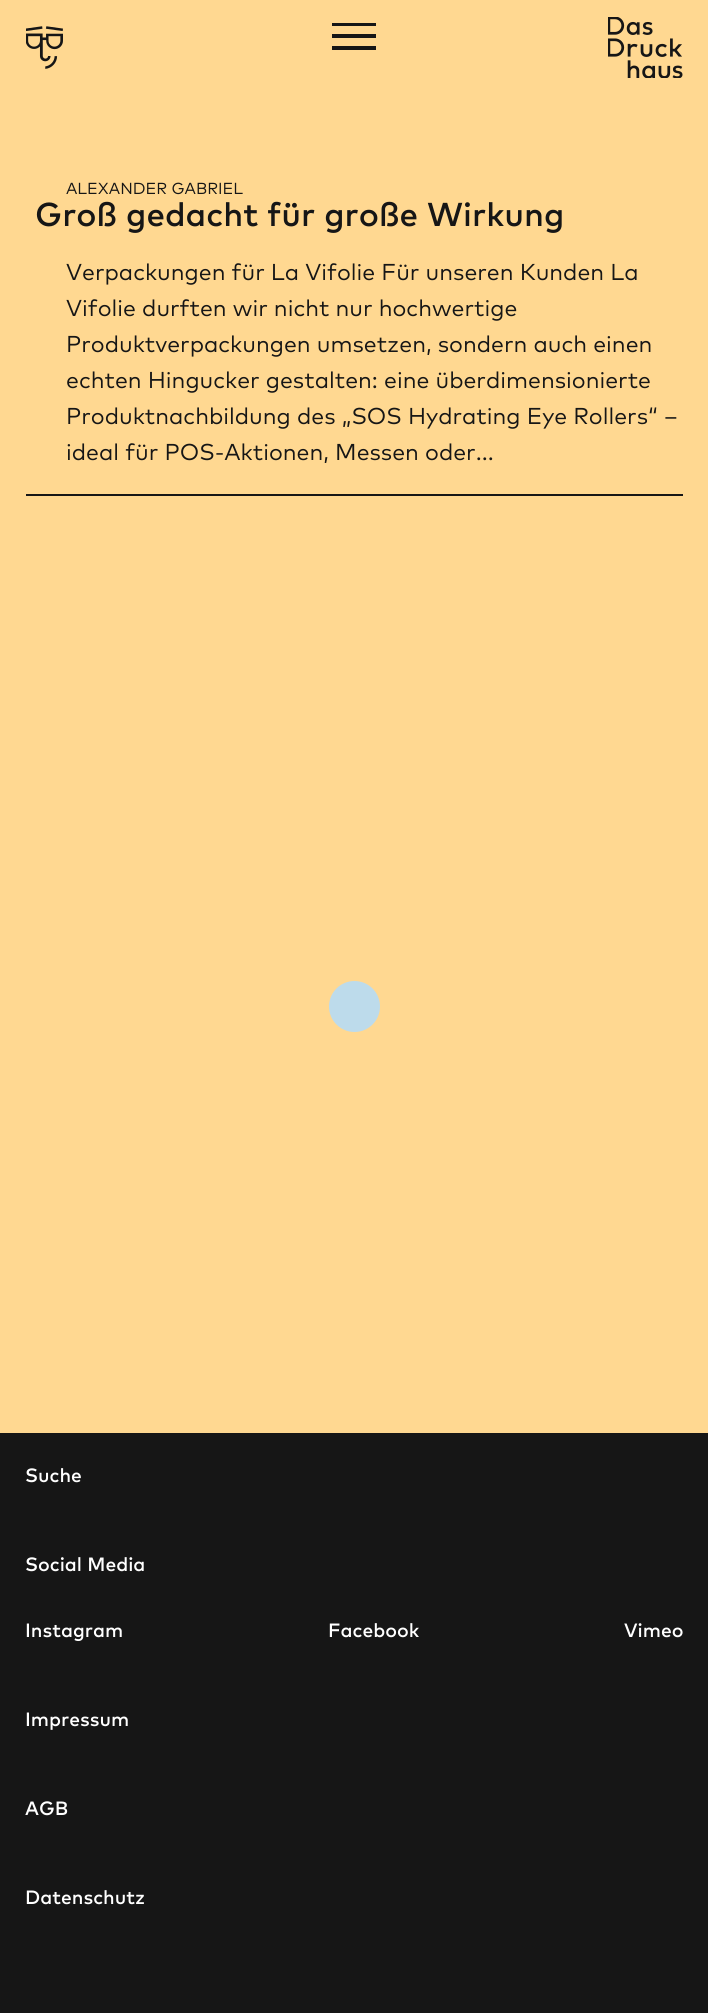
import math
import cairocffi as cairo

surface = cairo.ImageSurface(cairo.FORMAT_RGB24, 708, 2013)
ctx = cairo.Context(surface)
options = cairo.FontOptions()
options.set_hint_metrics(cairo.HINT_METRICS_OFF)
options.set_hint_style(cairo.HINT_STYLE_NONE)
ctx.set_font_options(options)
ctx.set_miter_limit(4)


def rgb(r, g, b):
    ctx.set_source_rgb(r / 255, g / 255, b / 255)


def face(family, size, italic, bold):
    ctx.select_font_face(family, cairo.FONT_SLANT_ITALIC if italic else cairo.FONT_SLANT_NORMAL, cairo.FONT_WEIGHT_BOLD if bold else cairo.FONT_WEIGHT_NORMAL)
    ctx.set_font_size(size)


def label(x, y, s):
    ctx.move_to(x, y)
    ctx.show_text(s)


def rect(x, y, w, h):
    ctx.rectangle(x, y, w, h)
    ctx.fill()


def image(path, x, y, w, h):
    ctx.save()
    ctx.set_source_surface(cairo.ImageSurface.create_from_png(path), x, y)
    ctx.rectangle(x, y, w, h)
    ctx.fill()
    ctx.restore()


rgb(255, 216, 145)
ctx.paint()
image('image0.png', 26, 26, 37, 43)
ctx.save()
ctx.rectangle(332, 23, 45, 27)
ctx.clip()
rgb(22, 22, 22)
ctx.new_path()
ctx.move_to(332, 22)
ctx.line_to(376, 22)
ctx.line_to(376, 26)
ctx.line_to(332, 26)
ctx.close_path()
ctx.move_to(332, 34)
ctx.line_to(376, 34)
ctx.line_to(376, 38)
ctx.line_to(332, 38)
ctx.close_path()
ctx.move_to(332, 46)
ctx.line_to(376, 46)
ctx.line_to(376, 50)
ctx.line_to(332, 50)
ctx.close_path()
ctx.fill()
ctx.restore()
image('image1.png', 608, 17, 75, 61)
rgb(22, 22, 22)
rect(26, 494, 657, 2)
face('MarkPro', 16, 0, 0)
label(66, 194, 'ALEXANDER GABRIEL')
face('Mark Pro Medium', 33.1, 0, 0)
label(35, 226, 'Groß gedacht für große Wirkung')
face('MarkPro', 23, 0, 0)
label(66, 280, 'Verpackungen für La Vifolie Für unseren Kunden La')
label(66, 316, 'Vifolie durften wir nicht nur hochwertige')
label(66, 352, 'Produktverpackungen umsetzen, sondern auch einen')
label(66, 388, 'echten Hingucker gestalten: eine überdimensionierte')
label(66, 424, 'Produktnachbildung des „SOS Hydrating Eye Rollers“ –')
label(66, 460, 'ideal für POS-Aktionen, Messen oder...')
rect(0, 1433, 708, 580)
face('Mark Pro Medium', 19.25, 0, 0)
rgb(255, 255, 255)
label(25, 1482, 'Suche')
label(25, 1571, 'Social Media')
label(25, 1637, 'Instagram')
label(328, 1637, 'Facebook')
label(624, 1637, 'Vimeo')
label(25, 1726, 'Impressum')
label(25, 1815, 'AGB')
label(25, 1904, 'Datenschutz')
rgb(189, 219, 235)
ctx.new_path()
ctx.arc(354.5, 1006.5, 25.5, 0, 2 * math.pi)
ctx.fill()
surface.write_to_png('render.png')
